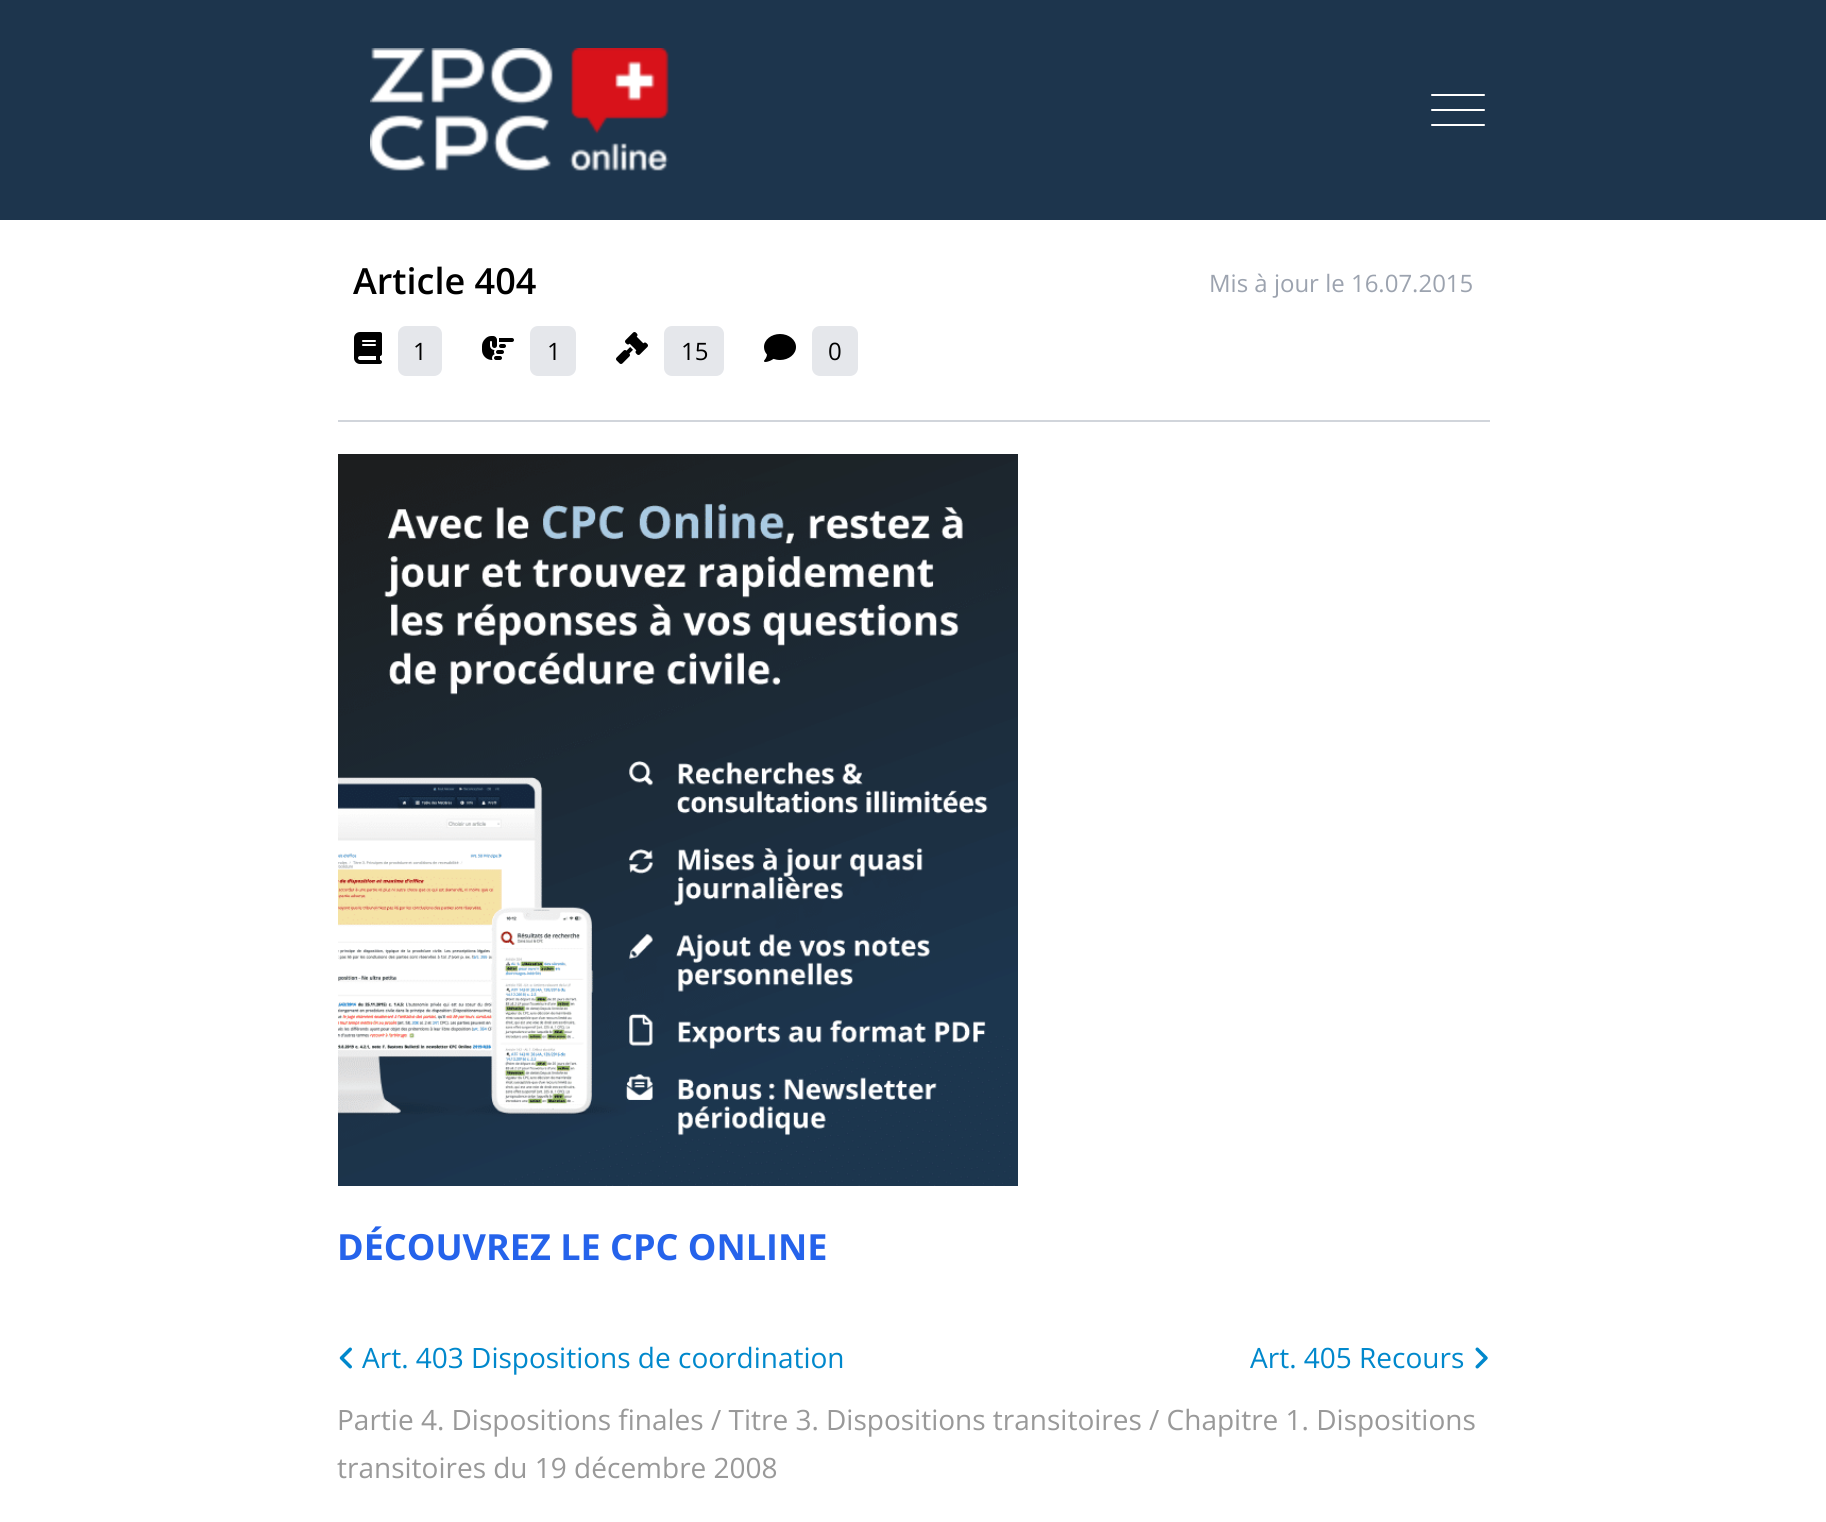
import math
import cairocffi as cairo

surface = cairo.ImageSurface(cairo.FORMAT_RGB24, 1826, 1522)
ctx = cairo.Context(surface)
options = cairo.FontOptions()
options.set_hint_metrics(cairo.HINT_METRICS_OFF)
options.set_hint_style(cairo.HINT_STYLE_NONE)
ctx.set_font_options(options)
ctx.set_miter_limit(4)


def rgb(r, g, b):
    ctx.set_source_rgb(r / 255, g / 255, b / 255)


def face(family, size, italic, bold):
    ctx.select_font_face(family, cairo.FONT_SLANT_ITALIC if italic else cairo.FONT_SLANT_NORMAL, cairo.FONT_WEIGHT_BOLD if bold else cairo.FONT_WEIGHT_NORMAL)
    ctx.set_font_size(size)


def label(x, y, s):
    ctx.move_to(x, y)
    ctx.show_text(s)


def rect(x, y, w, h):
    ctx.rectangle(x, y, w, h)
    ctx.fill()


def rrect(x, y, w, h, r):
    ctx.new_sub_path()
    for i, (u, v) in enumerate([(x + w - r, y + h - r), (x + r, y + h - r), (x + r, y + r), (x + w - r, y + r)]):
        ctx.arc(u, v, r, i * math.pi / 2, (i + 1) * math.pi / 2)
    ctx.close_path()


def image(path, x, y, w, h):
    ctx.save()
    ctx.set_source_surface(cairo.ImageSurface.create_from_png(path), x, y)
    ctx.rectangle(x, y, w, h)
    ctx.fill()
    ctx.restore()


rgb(255, 255, 255)
ctx.paint()
rgb(29, 53, 77)
rect(0, 0, 1826, 220)
image('image0.png', 370, 48, 299, 123)
image('image1.png', 1431, 94, 54, 32)
face('Open Sans SemiBold', 36, 0, 0)
rgb(0, 0, 0)
label(353, 294, 'Article 404')
face('Open Sans', 24, 0, 0)
rgb(156, 163, 175)
label(1209, 292, 'Mis à jour le 16.07.2015')
image('image2.png', 354, 332, 28, 32)
rgb(229, 231, 235)
rrect(398, 326, 44, 50, 8)
ctx.fill()
rgb(0, 0, 0)
label(413, 360, '1')
image('image3.png', 482, 336, 32, 24)
rgb(229, 231, 235)
rrect(530, 326, 46, 50, 8)
ctx.fill()
rgb(0, 0, 0)
label(547, 360, '1')
image('image4.png', 616, 332, 32, 32)
rgb(229, 231, 235)
rrect(664, 326, 60, 50, 8)
ctx.fill()
rgb(0, 0, 0)
label(681, 360, '15')
image('image5.png', 764, 334, 32, 28)
rgb(229, 231, 235)
rrect(812, 326, 46, 50, 8)
ctx.fill()
rgb(0, 0, 0)
label(828, 360, '0')
rgb(209, 213, 219)
rect(338, 420, 1152, 2)
image('image6.png', 338, 454, 680, 732)
face('Open Sans', 36, 0, 1)
rgb(37, 99, 235)
label(337, 1260, 'DÉCOUVREZ LE CPC ONLINE')
image('image7.png', 339, 1347, 13, 22)
face('Open Sans', 28, 0, 0)
rgb(0, 136, 204)
label(362, 1368, 'Art. 403 Dispositions de coordination')
label(1250, 1368, 'Art. 405 Recours')
image('image8.png', 1475, 1347, 13, 22)
rgb(153, 153, 153)
label(337, 1430, 'Partie 4. Dispositions finales / Titre 3. Dispositions transitoires / Chapitre 1. Dispositions')
label(337, 1478, 'transitoires du 19 décembre 2008')
surface.write_to_png('render.png')
